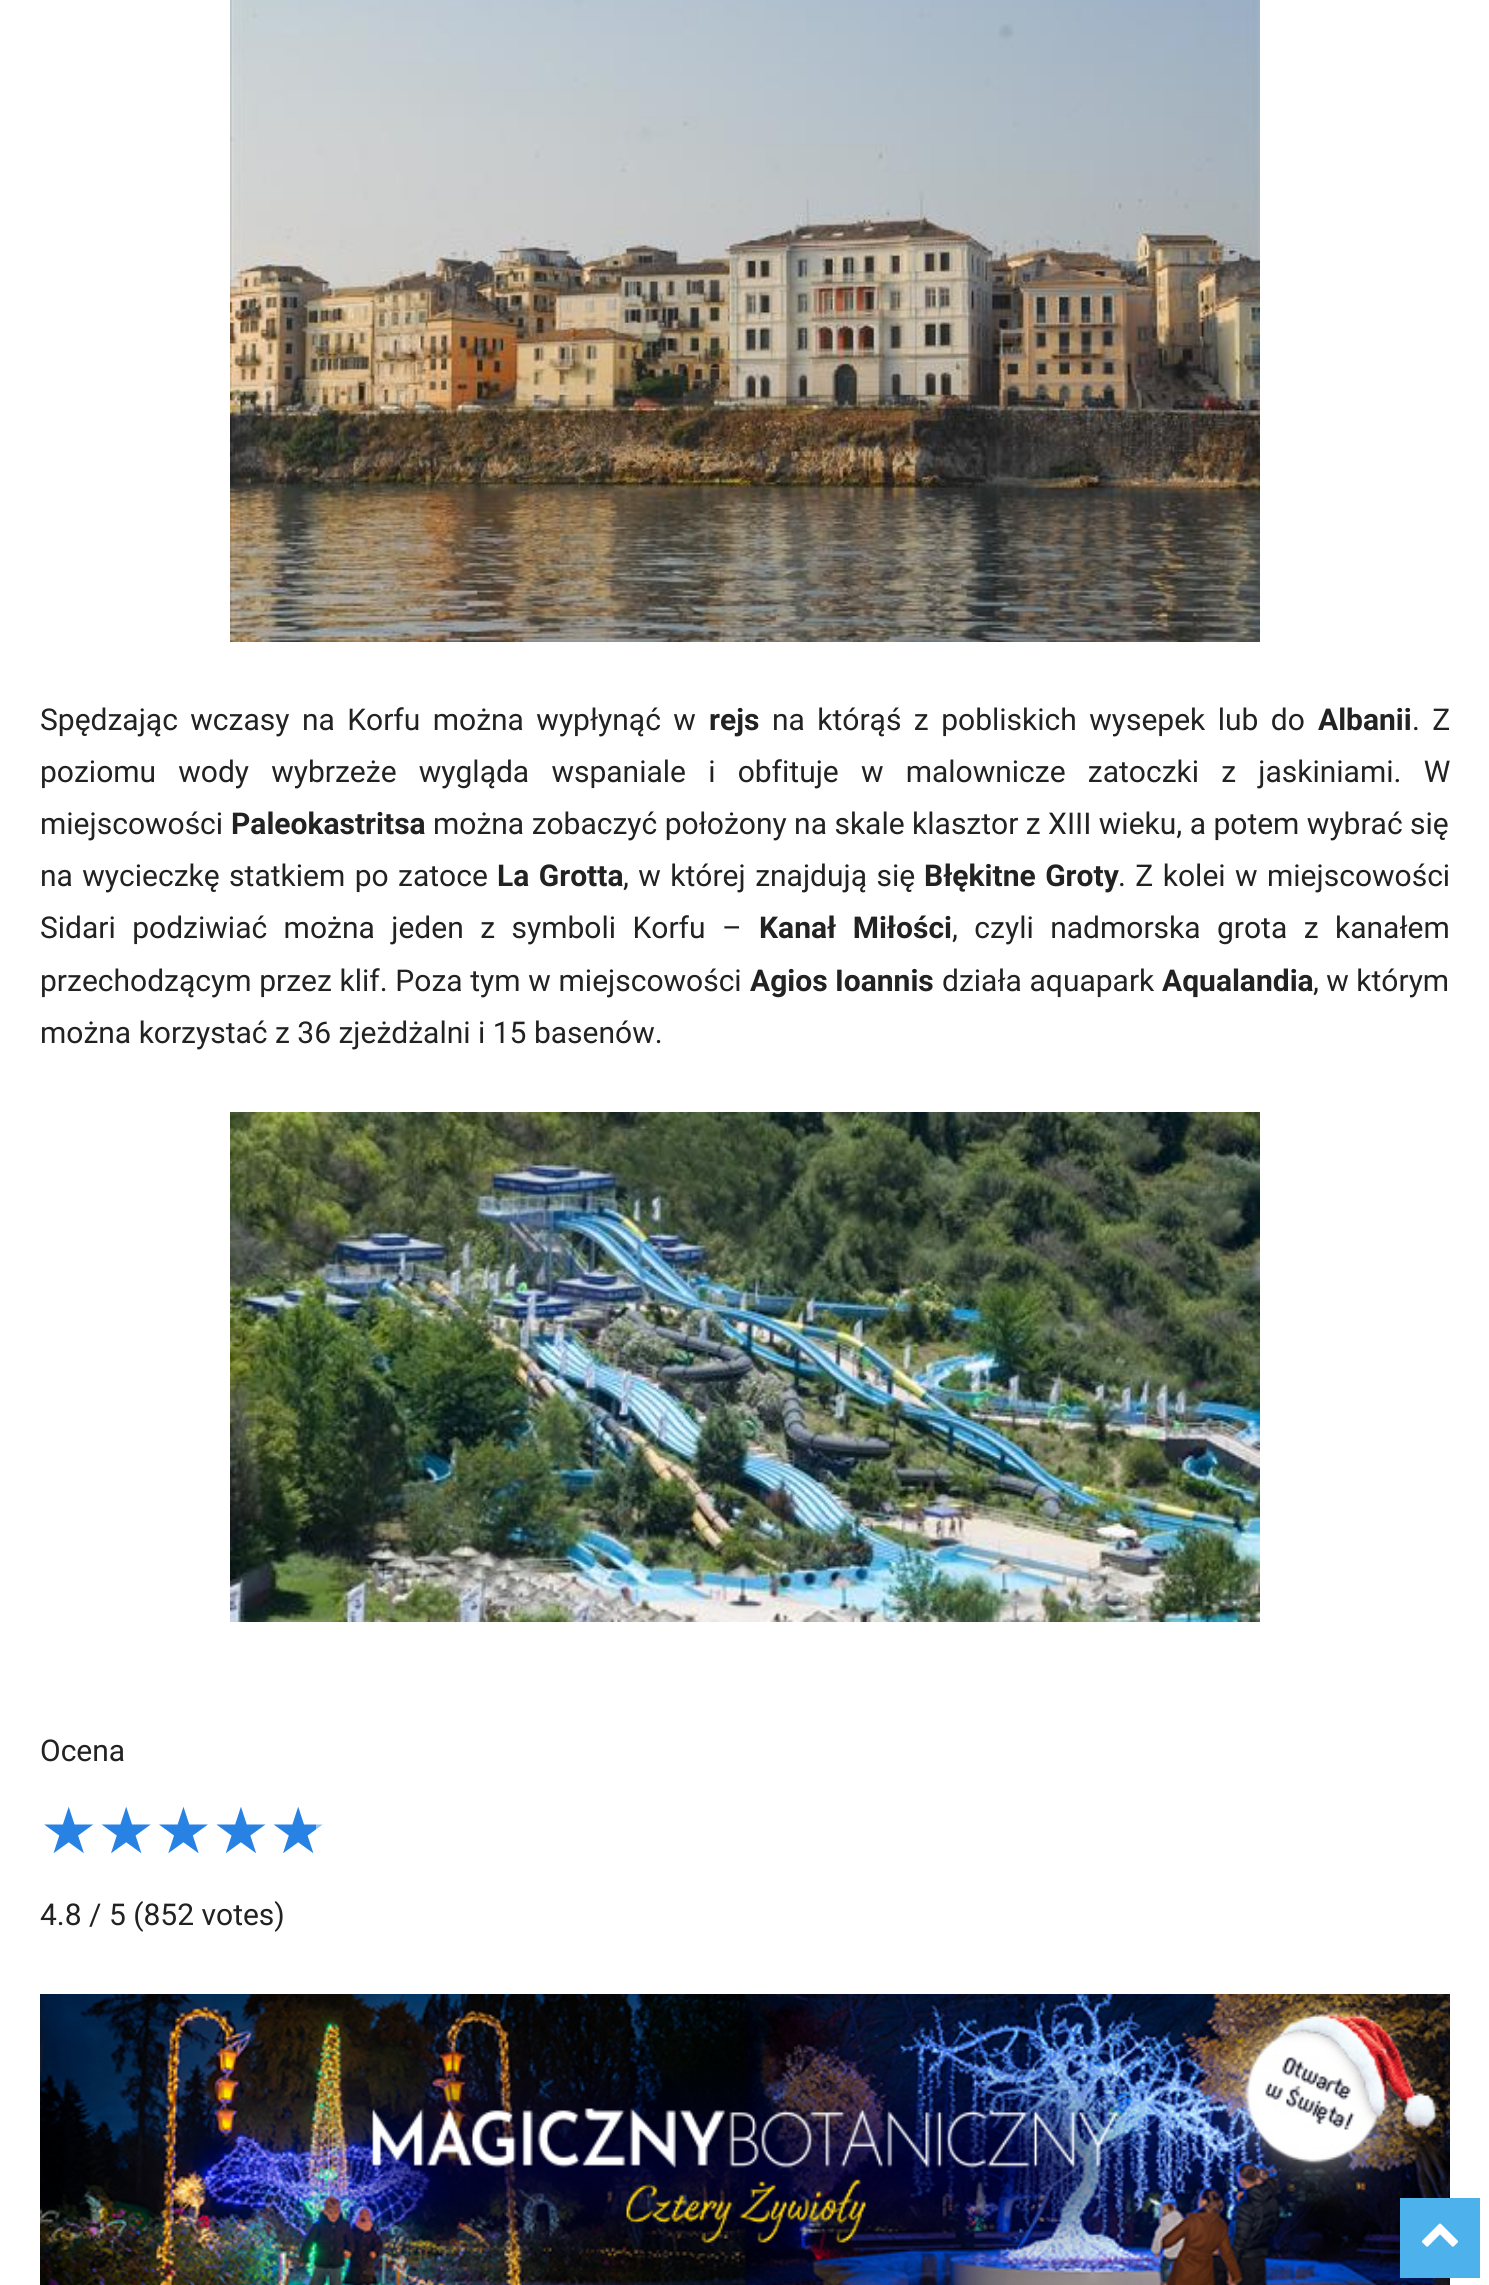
import math
import cairocffi as cairo

surface = cairo.ImageSurface(cairo.FORMAT_RGB24, 1489, 2285)
ctx = cairo.Context(surface)
options = cairo.FontOptions()
options.set_hint_metrics(cairo.HINT_METRICS_OFF)
options.set_hint_style(cairo.HINT_STYLE_NONE)
ctx.set_font_options(options)
ctx.set_miter_limit(4)


def rgb(r, g, b):
    ctx.set_source_rgb(r / 255, g / 255, b / 255)


def face(family, size, italic, bold):
    ctx.select_font_face(family, cairo.FONT_SLANT_ITALIC if italic else cairo.FONT_SLANT_NORMAL, cairo.FONT_WEIGHT_BOLD if bold else cairo.FONT_WEIGHT_NORMAL)
    ctx.set_font_size(size)


def label(x, y, s):
    ctx.move_to(x, y)
    ctx.show_text(s)


def tracked(x, y, s, letter, word):
    ctx.move_to(x, y)
    for ch in s:
        ctx.show_text(ch)
        ctx.rel_move_to(letter + word * (ch == ' '), 0)


def rect(x, y, w, h):
    ctx.rectangle(x, y, w, h)
    ctx.fill()


def image(path, x, y, w, h):
    ctx.save()
    ctx.set_source_surface(cairo.ImageSurface.create_from_png(path), x, y)
    ctx.rectangle(x, y, w, h)
    ctx.fill()
    ctx.restore()


rgb(255, 255, 255)
ctx.paint()
image('image0.png', 230, 0, 1030, 642)
face('Roboto', 30, 0, 0)
rgb(34, 34, 34)
tracked(40, 730, 'Spędzając wczasy na Korfu można wypłynąć w', 0, 5)
face('Roboto', 30, 0, 1)
label(709, 730, 'rejs')
face('Roboto', 30, 0, 0)
tracked(772, 730, 'na którąś z pobliskich wysepek lub do', 0, 5)
face('Roboto', 30, 0, 1)
label(1318, 730, 'Albanii')
face('Roboto', 30, 0, 0)
tracked(1412, 730, '. Z', 0, 5)
tracked(40, 782, 'poziomu wody wybrzeże wygląda wspaniale i obfituje w malownicze zatoczki z jaskiniami. W', 0, 14.75)
label(40, 834, 'miejscowości')
face('Roboto', 30, 0, 1)
label(231, 834, 'Paleokastritsa')
face('Roboto', 30, 0, 0)
label(433, 834, 'można zobaczyć położony na skale klasztor z XIII wieku, a potem wybrać się')
tracked(40, 886, 'na wycieczkę statkiem po zatoce', 0, 2)
face('Roboto', 30, 0, 1)
tracked(497, 886, 'La Grotta', 0, 2)
face('Roboto', 30, 0, 0)
tracked(623, 886, ', w której znajdują się', 0, 2)
face('Roboto', 30, 0, 1)
tracked(924, 886, 'Błękitne Groty', 0, 2)
face('Roboto', 30, 0, 0)
tracked(1118, 886, '. Z kolei w miejscowości', 0, 2)
tracked(40, 938, 'Sidari podziwiać można jeden z symboli Korfu –', 0, 9)
face('Roboto', 30, 0, 1)
tracked(759, 938, 'Kanał Miłości', 0, 9)
face('Roboto', 30, 0, 0)
tracked(952, 938, ', czyli nadmorska grota z kanałem', 0, 9)
tracked(40, 991, 'przechodzącym przez klif. Poza tym w miejscowości', 0, 0.25)
face('Roboto', 30, 0, 1)
label(750, 991, 'Agios Ioannis')
face('Roboto', 30, 0, 0)
tracked(942, 991, 'działa aquapark', 0, 0.25)
face('Roboto', 30, 0, 1)
label(1162, 991, 'Aqualandia')
face('Roboto', 30, 0, 0)
label(1313, 991, ', w którym')
label(40, 1043, 'można korzystać z 36 zjeżdżalni i 15 basenów.')
image('image1.png', 230, 1112, 1030, 510)
label(40, 1761, 'Ocena')
face('DejaVu Sans', 64, 0, 0)
rgb(39, 130, 228)
label(40, 1853, '★★★★★')
ctx.set_source_rgba(1, 1, 1, 0.5)
rect(316, 1824, 7, 6)
face('Roboto', 30, 0, 0)
rgb(34, 34, 34)
label(40, 1925, '4.8 / 5 (852 votes)')
image('image2.png', 40, 1994, 1410, 291)
rgb(77, 178, 236)
rect(1400, 2198, 80, 80)
image('image3.png', 1422, 2223, 36, 24)
surface.write_to_png('render.png')
